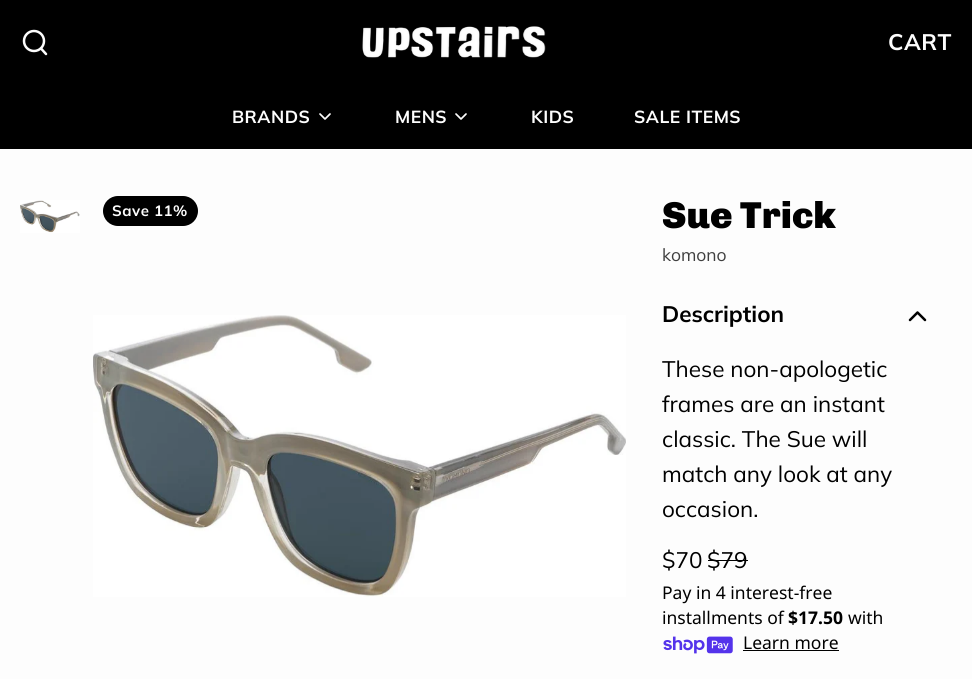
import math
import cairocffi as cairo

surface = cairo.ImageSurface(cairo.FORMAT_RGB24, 972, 679)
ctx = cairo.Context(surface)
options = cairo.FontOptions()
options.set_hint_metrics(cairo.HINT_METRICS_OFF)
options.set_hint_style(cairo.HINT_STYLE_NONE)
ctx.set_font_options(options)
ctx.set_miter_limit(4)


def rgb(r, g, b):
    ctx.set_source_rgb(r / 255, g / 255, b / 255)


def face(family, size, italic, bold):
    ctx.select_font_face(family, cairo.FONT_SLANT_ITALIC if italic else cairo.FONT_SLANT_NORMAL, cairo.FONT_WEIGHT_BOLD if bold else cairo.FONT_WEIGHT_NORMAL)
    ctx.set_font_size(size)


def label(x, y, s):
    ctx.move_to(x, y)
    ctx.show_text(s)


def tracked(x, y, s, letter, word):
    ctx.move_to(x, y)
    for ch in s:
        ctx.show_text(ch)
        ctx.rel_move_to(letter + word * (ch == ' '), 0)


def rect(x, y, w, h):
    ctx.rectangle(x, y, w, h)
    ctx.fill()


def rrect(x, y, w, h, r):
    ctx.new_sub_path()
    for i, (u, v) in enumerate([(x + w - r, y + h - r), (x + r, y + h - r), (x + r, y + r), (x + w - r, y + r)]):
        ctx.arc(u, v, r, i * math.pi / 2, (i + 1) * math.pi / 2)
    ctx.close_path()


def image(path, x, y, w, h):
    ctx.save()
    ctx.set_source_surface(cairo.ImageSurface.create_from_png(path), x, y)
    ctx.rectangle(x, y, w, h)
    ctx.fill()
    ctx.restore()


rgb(253, 253, 253)
ctx.paint()
rgb(0, 0, 0)
rect(0, 0, 972, 149)
ctx.arc(34, 41, 10, 0, 2 * math.pi)
rgb(253, 253, 253)
ctx.set_line_width(2.5)
ctx.stroke()
ctx.new_path()
ctx.move_to(46, 54)
ctx.line_to(41, 48.5)
ctx.set_line_cap(cairo.LINE_CAP_ROUND)
ctx.set_line_join(cairo.LINE_JOIN_ROUND)
ctx.stroke()
image('image0.png', 362, 26, 184, 32)
face('Muli', 22.5, 0, 1)
tracked(888, 50, 'CART', 0.5, 0)
face('Muli', 17.5, 0, 1)
tracked(232, 123, 'BRANDS', 0.5, 0)
ctx.new_path()
ctx.move_to(320, 114)
ctx.line_to(325, 119)
ctx.line_to(330, 114)
ctx.set_line_width(1.7)
ctx.stroke()
tracked(395, 123, 'MENS', 0.5, 0)
ctx.new_path()
ctx.move_to(456, 114)
ctx.line_to(461, 119)
ctx.line_to(466, 114)
ctx.stroke()
tracked(531, 123, 'KIDS', 0.5, 0)
tracked(634, 123, 'SALE ITEMS', 0.5, 0)
image('image1.png', 20, 200, 60, 33)
rgb(0, 0, 0)
rrect(103, 196, 95, 30, 15)
ctx.fill()
face('Muli', 15, 0, 1)
rgb(253, 253, 253)
tracked(112, 216, 'Save 11%', 0.5, 0)
image('image2.png', 93, 315, 533, 282)
face('Chivo Black', 37.5, 0, 0)
rgb(0, 0, 0)
label(662, 228, 'Sue Trick')
face('Muli', 17.5, 0, 0)
rgb(63, 63, 63)
label(662, 261, 'komono')
face('Muli', 22.5, 0, 1)
rgb(0, 0, 0)
label(662, 322, 'Description')
ctx.new_path()
ctx.move_to(925, 320)
ctx.line_to(917.5, 312.5)
ctx.line_to(910, 320)
ctx.set_line_width(2.5)
ctx.stroke()
face('Muli', 22.5, 0, 0)
label(662, 377, 'These non-apologetic')
label(662, 412, 'frames are an instant')
label(662, 447, 'classic. The Sue will')
label(662, 482, 'match any look at any')
label(662, 517, 'occasion.')
label(662, 568, '$70')
label(707, 568, '$79')
rect(708, 560, 40, 1)
face('Noto Sans', 17.5, 0, 0)
label(662, 599, 'Pay in 4 interest-free')
label(662, 624, 'installments of')
face('Noto Sans', 17.5, 0, 1)
label(788, 624, '$17.50')
face('Noto Sans', 17.5, 0, 0)
label(848, 624, 'with')
image('image3.png', 663, 636, 70, 18)
label(743, 649, 'Learn more')
rect(743, 650, 96, 1)
surface.write_to_png('render.png')
